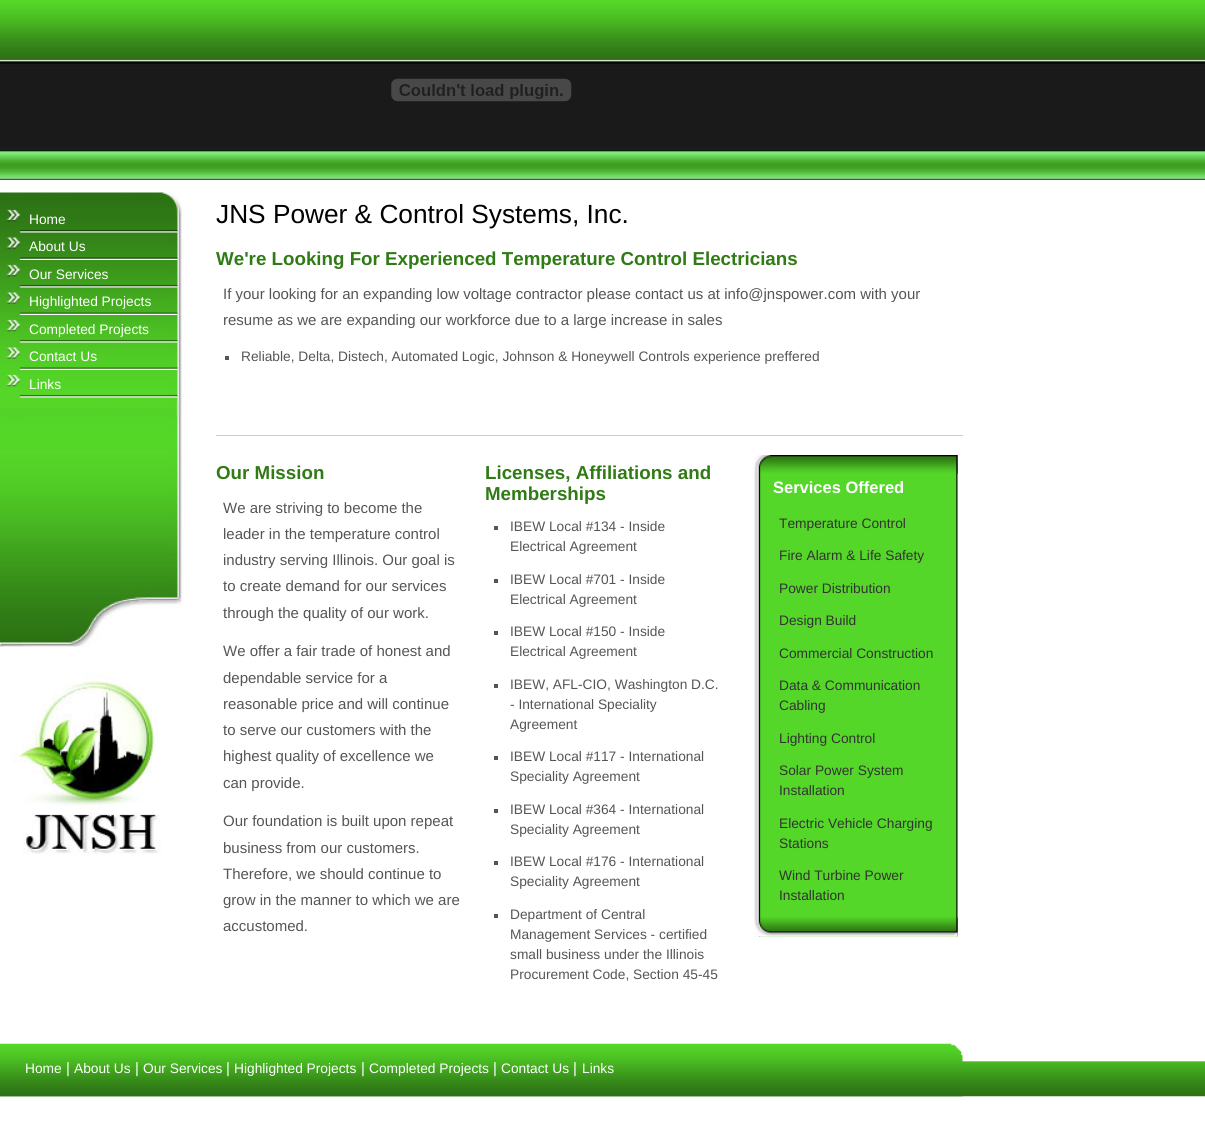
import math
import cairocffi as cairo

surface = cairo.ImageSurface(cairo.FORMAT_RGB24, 1205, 1124)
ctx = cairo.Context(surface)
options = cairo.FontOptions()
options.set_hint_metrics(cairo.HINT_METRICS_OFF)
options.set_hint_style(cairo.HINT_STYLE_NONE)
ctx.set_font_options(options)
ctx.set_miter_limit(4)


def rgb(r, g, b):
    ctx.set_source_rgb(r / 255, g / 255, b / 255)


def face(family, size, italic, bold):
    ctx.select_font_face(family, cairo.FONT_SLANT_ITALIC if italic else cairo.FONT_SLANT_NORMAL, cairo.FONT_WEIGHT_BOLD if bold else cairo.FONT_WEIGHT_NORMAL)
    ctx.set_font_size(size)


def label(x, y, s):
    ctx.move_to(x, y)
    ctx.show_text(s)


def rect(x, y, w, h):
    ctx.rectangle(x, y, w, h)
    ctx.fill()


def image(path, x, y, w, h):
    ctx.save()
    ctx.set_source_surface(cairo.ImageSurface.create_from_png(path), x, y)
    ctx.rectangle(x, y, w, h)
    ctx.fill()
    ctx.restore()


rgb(255, 255, 255)
ctx.paint()
image('image0.png', 0, 0, 1205, 180)
image('image1.png', 391, 78, 181, 24)
image('image2.png', 0, 190, 182, 458)
image('image3.png', 6, 209, 172, 24)
face('Liberation Sans', 13.75, 0, 0)
rgb(255, 255, 255)
label(29, 224, 'Home')
image('image4.png', 6, 237, 172, 23)
label(29, 251, 'About Us')
image('image5.png', 6, 264, 172, 24)
label(29, 279, 'Our Services')
image('image6.png', 6, 292, 172, 23)
label(29, 306, 'Highlighted Projects')
image('image7.png', 6, 319, 172, 24)
label(29, 334, 'Completed Projects')
image('image8.png', 6, 347, 172, 23)
label(29, 361, 'Contact Us')
image('image9.png', 6, 374, 172, 24)
label(29, 389, 'Links')
image('image10.png', 12, 674, 149, 180)
face('Liberation Sans', 26.25, 0, 0)
rgb(0, 0, 0)
label(216, 223, 'JNS Power & Control Systems, Inc.')
face('Liberation Sans', 18.75, 0, 1)
rgb(48, 123, 22)
label(216, 265, 'We\'re Looking For Experienced Temperature Control Electricians')
face('Liberation Sans', 15, 0, 0)
rgb(85, 85, 85)
label(223, 299, 'If your looking for an expanding low voltage contractor please contact us at info@jnspower.com with your')
label(223, 325, 'resume as we are expanding our workforce due to a large increase in sales')
rect(225, 356, 4, 4)
face('Liberation Sans', 13.75, 0, 0)
label(241, 361, 'Reliable, Delta, Distech, Automated Logic, Johnson & Honeywell Controls experience preffered')
rgb(204, 204, 204)
rect(216, 435, 747, 1)
face('Liberation Sans', 18.75, 0, 1)
rgb(48, 123, 22)
label(216, 479, 'Our Mission')
face('Liberation Sans', 15, 0, 0)
rgb(85, 85, 85)
label(223, 513, 'We are striving to become the')
label(223, 539, 'leader in the temperature control')
label(223, 565, 'industry serving Illinois. Our goal is')
label(223, 591, 'to create demand for our services')
label(223, 618, 'through the quality of our work.')
label(223, 656, 'We offer a fair trade of honest and')
label(223, 683, 'dependable service for a')
label(223, 709, 'reasonable price and will continue')
label(223, 735, 'to serve our customers with the')
label(223, 761, 'highest quality of excellence we')
label(223, 788, 'can provide.')
label(223, 826, 'Our foundation is built upon repeat')
label(223, 853, 'business from our customers.')
label(223, 879, 'Therefore, we should continue to')
label(223, 905, 'grow in the manner to which we are')
label(223, 931, 'accustomed.')
face('Liberation Sans', 18.75, 0, 1)
rgb(48, 123, 22)
label(485, 479, 'Licenses, Affiliations and')
label(485, 500, 'Memberships')
rgb(85, 85, 85)
rect(494, 526, 4, 4)
face('Liberation Sans', 13.75, 0, 0)
label(510, 531, 'IBEW Local #134 - Inside')
label(510, 551, 'Electrical Agreement')
rect(494, 579, 4, 4)
label(510, 584, 'IBEW Local #701 - Inside')
label(510, 604, 'Electrical Agreement')
rect(494, 631, 4, 4)
label(510, 636, 'IBEW Local #150 - Inside')
label(510, 656, 'Electrical Agreement')
rect(494, 684, 4, 4)
label(510, 689, 'IBEW, AFL-CIO, Washington D.C.')
label(510, 709, '- International Speciality')
label(510, 729, 'Agreement')
rect(494, 756, 4, 4)
label(510, 761, 'IBEW Local #117 - International')
label(510, 781, 'Speciality Agreement')
rect(494, 809, 4, 4)
label(510, 814, 'IBEW Local #364 - International')
label(510, 834, 'Speciality Agreement')
rect(494, 861, 4, 4)
label(510, 866, 'IBEW Local #176 - International')
label(510, 886, 'Speciality Agreement')
rect(494, 914, 4, 4)
label(510, 919, 'Department of Central')
label(510, 939, 'Management Services - certified')
label(510, 959, 'small business under the Illinois')
label(510, 979, 'Procurement Code, Section 45-45')
image('image11.png', 754, 455, 204, 482)
image('image12.png', 753, 455, 205, 19)
face('Liberation Sans', 16.5, 0, 1)
rgb(255, 255, 255)
label(773, 493, 'Services Offered')
face('Liberation Sans', 13.75, 0, 0)
rgb(51, 51, 51)
label(779, 528, 'Temperature Control')
label(779, 560, 'Fire Alarm & Life Safety')
label(779, 593, 'Power Distribution')
label(779, 625, 'Design Build')
label(779, 658, 'Commercial Construction')
label(779, 690, 'Data & Communication')
label(779, 710, 'Cabling')
label(779, 743, 'Lighting Control')
label(779, 775, 'Solar Power System')
label(779, 795, 'Installation')
label(779, 828, 'Electric Vehicle Charging')
label(779, 848, 'Stations')
label(779, 880, 'Wind Turbine Power')
label(779, 900, 'Installation')
image('image13.png', 753, 917, 205, 20)
image('image14.png', 0, 1061, 1205, 36)
image('image15.png', 0, 1043, 963, 54)
rgb(255, 255, 255)
label(25, 1073, 'Home')
face('Liberation Sans', 15, 0, 0)
label(66, 1073, '|')
face('Liberation Sans', 13.75, 0, 0)
label(74, 1073, 'About Us')
face('Liberation Sans', 15, 0, 0)
label(135, 1073, '|')
face('Liberation Sans', 13.75, 0, 0)
label(143, 1073, 'Our Services')
face('Liberation Sans', 15, 0, 0)
label(226, 1073, '|')
face('Liberation Sans', 13.75, 0, 0)
label(234, 1073, 'Highlighted Projects')
face('Liberation Sans', 15, 0, 0)
label(361, 1073, '|')
face('Liberation Sans', 13.75, 0, 0)
label(369, 1073, 'Completed Projects')
face('Liberation Sans', 15, 0, 0)
label(493, 1073, '|')
face('Liberation Sans', 13.75, 0, 0)
label(501, 1073, 'Contact Us')
face('Liberation Sans', 15, 0, 0)
label(573, 1073, '|')
face('Liberation Sans', 13.75, 0, 0)
label(582, 1073, 'Links')
surface.write_to_png('render.png')
